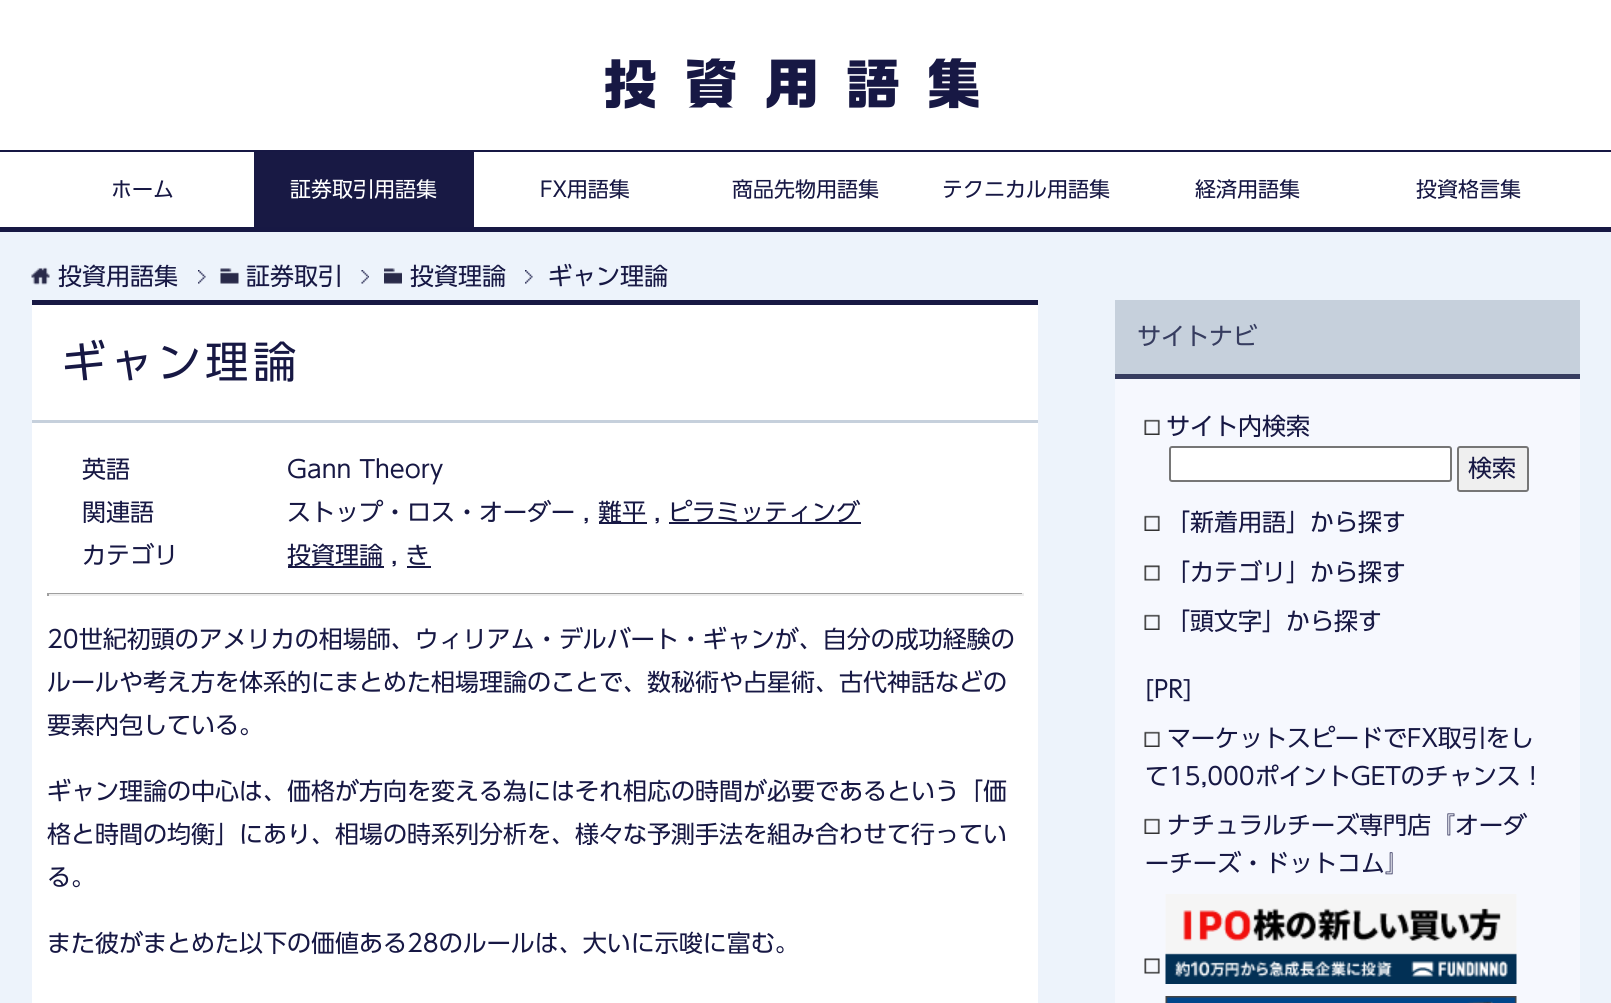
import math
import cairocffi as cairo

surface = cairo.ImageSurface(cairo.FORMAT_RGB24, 1611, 1003)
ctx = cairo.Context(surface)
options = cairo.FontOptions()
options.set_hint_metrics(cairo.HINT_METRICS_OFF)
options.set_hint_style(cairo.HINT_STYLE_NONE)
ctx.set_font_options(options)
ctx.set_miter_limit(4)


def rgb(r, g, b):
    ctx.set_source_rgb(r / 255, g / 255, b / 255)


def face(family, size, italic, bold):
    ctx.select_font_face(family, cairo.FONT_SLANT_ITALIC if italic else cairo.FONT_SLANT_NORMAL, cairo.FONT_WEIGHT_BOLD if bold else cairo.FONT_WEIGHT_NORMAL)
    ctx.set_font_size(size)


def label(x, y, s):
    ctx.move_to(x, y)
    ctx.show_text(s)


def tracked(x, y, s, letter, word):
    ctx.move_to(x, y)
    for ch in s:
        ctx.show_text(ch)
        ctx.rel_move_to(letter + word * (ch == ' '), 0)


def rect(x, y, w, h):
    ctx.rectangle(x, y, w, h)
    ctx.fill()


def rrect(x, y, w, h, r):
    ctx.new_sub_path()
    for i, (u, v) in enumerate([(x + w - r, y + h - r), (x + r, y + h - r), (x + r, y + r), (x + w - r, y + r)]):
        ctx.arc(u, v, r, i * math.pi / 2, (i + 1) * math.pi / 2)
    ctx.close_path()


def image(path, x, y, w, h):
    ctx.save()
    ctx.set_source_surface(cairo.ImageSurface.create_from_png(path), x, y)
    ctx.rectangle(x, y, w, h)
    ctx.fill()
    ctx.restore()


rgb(237, 243, 251)
ctx.paint()
rgb(255, 255, 255)
rect(0, 0, 1611, 227)
face('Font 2', 54, 0, 0)
rgb(23, 24, 68)
tracked(603, 104, '投資用語集', 27, 0)
rect(0, 150, 1611, 2)
rect(0, 227, 1611, 5)
face('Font', 21, 0, 0)
label(111, 197, 'ホーム')
rgb(24, 25, 68)
rect(254, 152, 220, 75)
rgb(255, 255, 255)
label(290, 197, '証券取引用語集')
rgb(23, 24, 68)
label(540, 197, 'FX用語集')
label(732, 197, '商品先物用語集')
label(942, 197, 'テクニカル用語集')
label(1195, 197, '経済用語集')
label(1416, 197, '投資格言集')
image('image0.png', 198, 270, 8, 14)
image('image1.png', 31, 267, 19, 18)
face('Font', 24, 0, 0)
label(58, 285, '投資用語集')
image('image2.png', 361, 270, 8, 14)
image('image3.png', 220, 268, 19, 16)
label(246, 285, '証券取引')
image('image4.png', 525, 270, 8, 14)
image('image5.png', 384, 268, 18, 16)
label(410, 285, '投資理論')
label(548, 285, 'ギャン理論')
rgb(255, 255, 255)
rect(32, 305, 1006, 698)
rgb(24, 25, 68)
rect(32, 300, 1006, 5)
rgb(198, 208, 220)
rect(32, 420, 1006, 3)
face('Font', 43.25, 0, 0)
rgb(23, 24, 68)
tracked(62, 378, 'ギャン理論', 4.5, 0)
face('Font', 24, 0, 0)
label(82, 478, '英語')
label(287, 478, 'Gann Theory')
label(82, 521, '関連語')
label(287, 521, 'ストップ・ロス・オーダー ,')
rect(599, 522, 48, 2)
label(598, 521, '難平 ,')
rect(669, 522, 192, 2)
label(668, 521, 'ピラミッティング')
label(82, 564, 'カテゴリ')
rect(288, 566, 96, 2)
label(287, 564, '投資理論 , き')
rect(407, 566, 24, 2)
rgb(159, 159, 159)
rect(47, 593, 976, 1)
rgb(238, 238, 238)
rect(1022, 593, 2, 3)
rect(47, 594, 976, 2)
rgb(159, 159, 159)
rect(47, 593, 2, 3)
rgb(23, 24, 68)
label(47, 648, '20世紀初頭のアメリカの相場師、ウィリアム・デルバート・ギャンが、自分の成功経験の')
label(47, 691, 'ルールや考え方を体系的にまとめた相場理論のことで、数秘術や占星術、古代神話などの')
label(47, 734, '要素内包している。')
label(47, 800, 'ギャン理論の中心は、価格が方向を変える為にはそれ相応の時間が必要であるという「価')
label(47, 843, '格と時間の均衡」にあり、相場の時系列分析を、様々な予測手法を組み合わせて行ってい')
label(47, 886, 'る。')
label(47, 952, 'また彼がまとめた以下の価値ある28のルールは、大いに示唆に富む。')
rgb(246, 248, 254)
rect(1115, 379, 465, 624)
rgb(198, 208, 220)
rect(1115, 300, 465, 74)
rgb(55, 61, 96)
rect(1115, 374, 465, 5)
label(1137, 345, 'サイトナビ')
image('image6.png', 1144, 419, 16, 16)
rgb(23, 24, 68)
label(1166, 435, 'サイト内検索')
rgb(255, 255, 255)
rrect(1170, 447, 281, 34, 2)
ctx.fill_preserve()
rgb(118, 118, 118)
ctx.stroke()
rgb(239, 239, 239)
rrect(1458, 447, 70, 44, 2)
ctx.fill_preserve()
rgb(118, 118, 118)
ctx.stroke()
rgb(23, 24, 68)
label(1468, 477, '検索')
image('image6.png', 1144, 515, 16, 16)
label(1166, 531, '「新着用語」から探す')
image('image7.png', 1144, 565, 16, 16)
label(1166, 581, '「カテゴリ」から探す')
image('image6.png', 1144, 614, 16, 16)
label(1166, 630, '「頭文字」から探す')
label(1145, 698, '[PR]')
image('image6.png', 1144, 731, 16, 16)
label(1167, 747, 'マーケットスピードでFX取引をし')
label(1145, 785, 'て15,000ポイントGETのチャンス！')
image('image6.png', 1144, 818, 16, 16)
label(1167, 834, 'ナチュラルチーズ専門店『オーダ')
label(1145, 872, 'ーチーズ・ドットコム』')
image('image7.png', 1144, 958, 16, 16)
image('image8.png', 1165, 894, 352, 90)
image('image9.png', 1165, 996, 352, 7)
surface.write_to_png('render.png')
